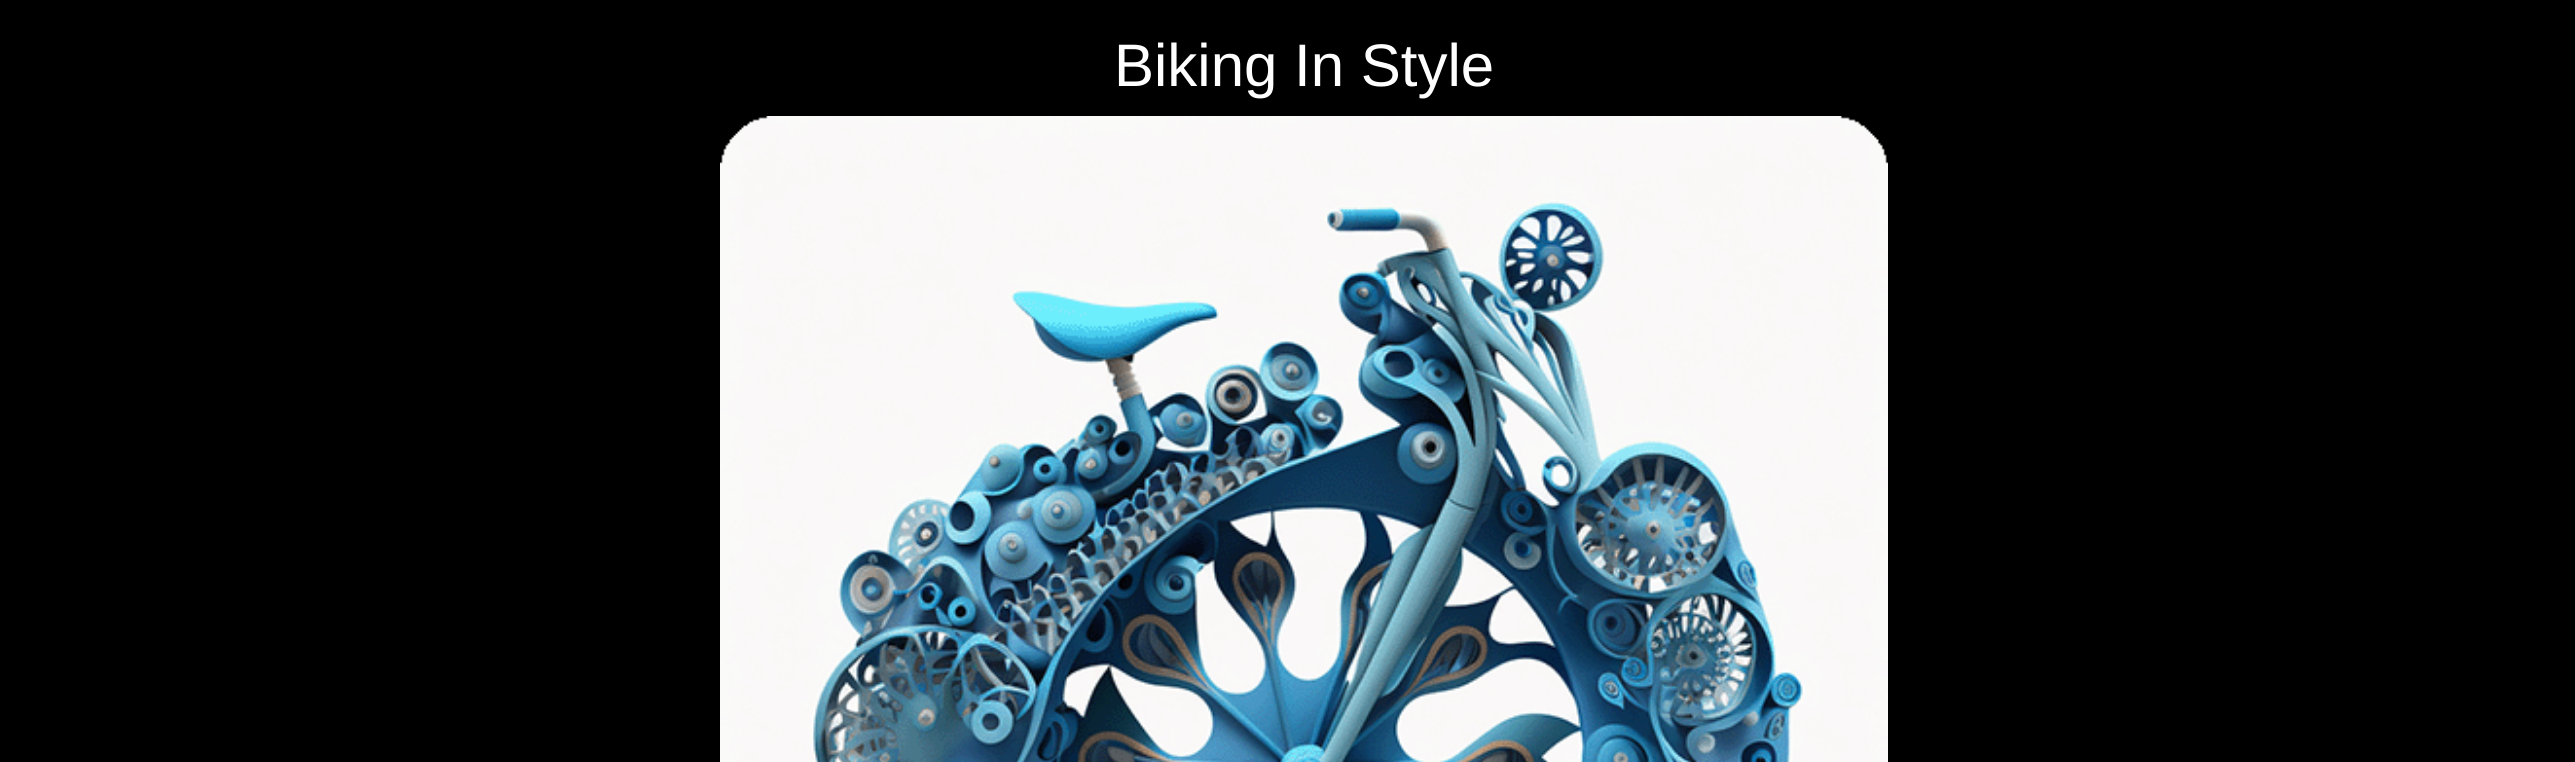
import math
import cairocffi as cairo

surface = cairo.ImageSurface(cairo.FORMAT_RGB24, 2575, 762)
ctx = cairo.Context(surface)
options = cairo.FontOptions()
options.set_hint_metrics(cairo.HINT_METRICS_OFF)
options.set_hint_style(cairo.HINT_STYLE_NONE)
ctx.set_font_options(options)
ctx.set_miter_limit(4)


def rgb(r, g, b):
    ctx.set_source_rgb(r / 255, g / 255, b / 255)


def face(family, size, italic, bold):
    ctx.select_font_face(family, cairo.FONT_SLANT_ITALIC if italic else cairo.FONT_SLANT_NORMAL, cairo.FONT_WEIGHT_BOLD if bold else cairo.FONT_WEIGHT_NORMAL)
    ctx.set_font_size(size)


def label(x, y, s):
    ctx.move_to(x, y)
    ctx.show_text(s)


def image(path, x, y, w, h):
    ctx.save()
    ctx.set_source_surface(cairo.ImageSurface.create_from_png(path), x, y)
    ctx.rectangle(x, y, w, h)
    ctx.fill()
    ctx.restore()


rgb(0, 0, 0)
ctx.paint()
face('Liberation Sans', 60, 0, 0)
rgb(255, 255, 255)
label(1114, 86, 'Biking In Style')
image('image0.png', 720, 116, 1168, 646)
surface.write_to_png('render.png')
